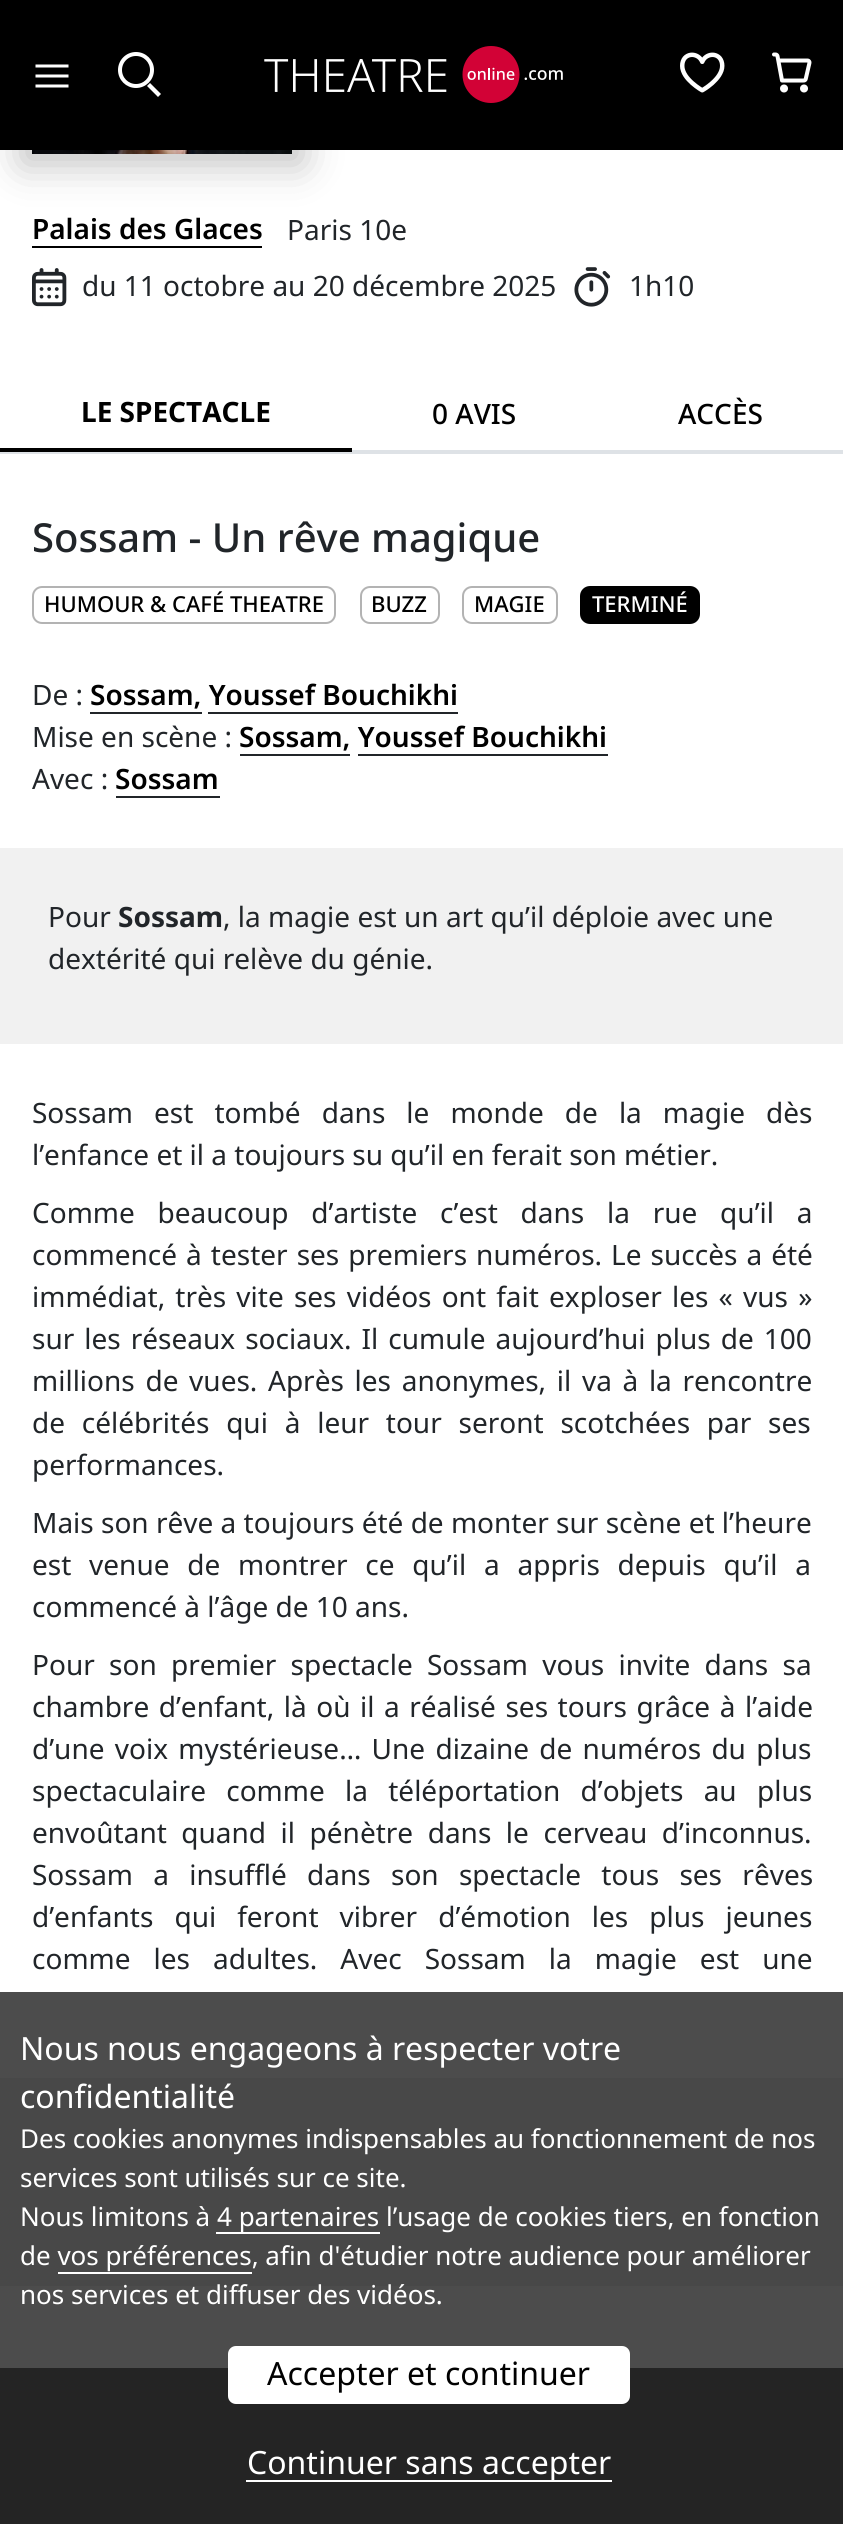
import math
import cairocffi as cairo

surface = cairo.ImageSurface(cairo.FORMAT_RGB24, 843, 2524)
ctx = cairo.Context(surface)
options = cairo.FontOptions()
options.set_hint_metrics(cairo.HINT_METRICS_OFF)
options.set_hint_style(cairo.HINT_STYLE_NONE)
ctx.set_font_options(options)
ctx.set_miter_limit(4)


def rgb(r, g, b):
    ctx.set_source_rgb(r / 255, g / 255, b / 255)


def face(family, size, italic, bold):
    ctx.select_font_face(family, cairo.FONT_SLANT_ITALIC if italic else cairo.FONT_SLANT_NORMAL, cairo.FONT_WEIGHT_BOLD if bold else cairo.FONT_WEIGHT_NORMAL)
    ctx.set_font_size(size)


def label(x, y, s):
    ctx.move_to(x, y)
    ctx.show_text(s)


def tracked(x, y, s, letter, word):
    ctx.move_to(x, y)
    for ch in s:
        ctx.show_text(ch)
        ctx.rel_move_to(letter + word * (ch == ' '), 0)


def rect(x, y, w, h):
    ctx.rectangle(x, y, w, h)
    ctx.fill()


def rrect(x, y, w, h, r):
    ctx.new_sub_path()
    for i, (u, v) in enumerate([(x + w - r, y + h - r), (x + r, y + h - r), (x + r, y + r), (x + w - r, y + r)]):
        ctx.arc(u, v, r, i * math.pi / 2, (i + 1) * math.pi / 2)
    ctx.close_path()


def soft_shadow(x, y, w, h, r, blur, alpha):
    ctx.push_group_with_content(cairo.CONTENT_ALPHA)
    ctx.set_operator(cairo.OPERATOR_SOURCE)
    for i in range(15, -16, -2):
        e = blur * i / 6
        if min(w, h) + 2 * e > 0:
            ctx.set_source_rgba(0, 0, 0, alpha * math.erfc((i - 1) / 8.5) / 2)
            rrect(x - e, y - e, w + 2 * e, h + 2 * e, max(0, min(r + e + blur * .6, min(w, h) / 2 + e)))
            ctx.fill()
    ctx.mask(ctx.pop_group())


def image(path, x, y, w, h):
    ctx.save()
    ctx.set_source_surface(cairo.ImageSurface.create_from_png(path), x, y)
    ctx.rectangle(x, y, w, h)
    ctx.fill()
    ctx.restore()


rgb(255, 255, 255)
ctx.paint()
rgb(0, 0, 0)
soft_shadow(22, -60, 280, 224, 0, 20, 0.25)
rgb(0, 0, 0)
rect(0, 0, 843, 150)
rgb(255, 255, 255)
ctx.new_path()
ctx.move_to(35.5, 64.5)
ctx.line_to(35.5, 67.5)
ctx.line_to(68.5, 67.5)
ctx.line_to(68.5, 64.5)
ctx.close_path()
ctx.move_to(35.5, 74.5)
ctx.line_to(35.5, 77.5)
ctx.line_to(68.5, 77.5)
ctx.line_to(68.5, 74.5)
ctx.close_path()
ctx.move_to(35.5, 84.5)
ctx.line_to(35.5, 87.5)
ctx.line_to(68.5, 87.5)
ctx.line_to(68.5, 84.5)
ctx.close_path()
ctx.fill()
ctx.new_path()
ctx.move_to(150, 83)
ctx.line_to(161, 94)
ctx.line_to(158, 97)
ctx.line_to(147, 86)
ctx.close_path()
ctx.fill()
ctx.arc(136, 70, 16, 0, 2 * math.pi)
ctx.set_line_width(4)
ctx.stroke()
image('image0.png', 264, 46, 299, 57)
image('image1.png', 680, 52, 45, 41)
image('image2.png', 772, 52, 40, 41)
image('image3.png', 32, 150, 260, 4)
face('Noto Sans SemiBold', 28, 0, 0)
rgb(0, 0, 0)
label(32, 239, 'Palais des Glaces')
rect(32, 246, 230, 2)
face('Noto Sans', 28, 0, 0)
rgb(33, 37, 41)
label(287, 240, 'Paris 10e')
image('image4.png', 32, 268, 35, 39)
label(82, 296, 'du 11 octobre au 20 décembre 2025')
image('image5.png', 574, 267, 37, 40)
label(629, 296, '1h10')
rgb(222, 226, 230)
rect(352, 450, 491, 2)
rgb(0, 0, 0)
rect(0, 448, 352, 4)
face('Noto Sans', 28, 0, 1)
label(81, 422, 'LE SPECTACLE')
face('Noto Sans Medium', 28, 0, 0)
label(432, 424, '0 AVIS')
label(678, 424, 'ACCÈS')
rgb(222, 226, 230)
rect(0, 452, 843, 2)
face('Noto Sans Medium', 40, 0, 0)
rgb(33, 37, 41)
label(32, 552, 'Sossam - Un rêve magique')
rrect(33, 587, 302, 36, 9)
rgb(179, 179, 179)
ctx.set_line_width(2)
ctx.stroke()
face('Noto Sans Medium', 22, 0, 0)
rgb(0, 0, 0)
label(44, 612, 'HUMOUR & CAFÉ THEATRE')
rrect(361, 587, 78, 36, 9)
rgb(179, 179, 179)
ctx.stroke()
rgb(0, 0, 0)
label(371, 612, 'BUZZ')
rrect(463, 587, 94, 36, 9)
rgb(179, 179, 179)
ctx.stroke()
rgb(0, 0, 0)
label(474, 612, 'MAGIE')
rrect(581, 587, 118, 36, 9)
ctx.fill_preserve()
ctx.stroke()
rgb(255, 255, 255)
label(592, 612, 'TERMINÉ')
face('Noto Sans', 28, 0, 0)
rgb(33, 37, 41)
label(32, 705, 'De :')
face('Noto Sans SemiBold', 28, 0, 0)
rgb(0, 0, 0)
label(90, 705, 'Sossam, Youssef Bouchikhi')
rgb(33, 37, 41)
rect(90, 712, 112, 2)
rect(208, 712, 250, 2)
face('Noto Sans', 28, 0, 0)
label(32, 747, 'Mise en scène :')
face('Noto Sans SemiBold', 28, 0, 0)
rgb(0, 0, 0)
label(239, 747, 'Sossam, Youssef Bouchikhi')
rgb(33, 37, 41)
rect(240, 754, 110, 2)
rect(358, 754, 250, 2)
face('Noto Sans', 28, 0, 0)
label(32, 789, 'Avec :')
face('Noto Sans SemiBold', 28, 0, 0)
rgb(0, 0, 0)
label(115, 789, 'Sossam')
rgb(33, 37, 41)
rect(116, 796, 104, 2)
rgb(241, 241, 241)
rect(0, 848, 843, 196)
face('Noto Sans', 28, 0, 0)
rgb(33, 37, 41)
label(48, 927, 'Pour')
face('Noto Sans', 28, 0, 1)
label(118, 927, 'Sossam')
face('Noto Sans', 28, 0, 0)
label(223, 927, ', la magie est un art qu’il déploie avec une')
label(48, 969, 'dextérité qui relève du génie.')
tracked(32, 1123, 'Sossam est tombé dans le monde de la magie dès', 0, 13.75)
label(32, 1165, 'l’enfance et il a toujours su qu’il en ferait son métier.')
tracked(32, 1223, 'Comme beaucoup d’artiste c’est dans la rue qu’il a', 0, 15.5)
tracked(32, 1265, 'commencé à tester ses premiers numéros. Le succès a été', 0, 1.75)
tracked(32, 1307, 'immédiat, très vite ses vidéos ont fait exploser les « vus »', 0, 2.9)
tracked(32, 1349, 'sur les réseaux sociaux. Il cumule aujourd’hui plus de 100', 0, 2.75)
tracked(32, 1391, 'millions de vues. Après les anonymes, il va à la rencontre', 0, 3.4)
tracked(32, 1433, 'de célébrités qui à leur tour seront scotchées par ses', 0, 9.5)
label(32, 1475, 'performances.')
label(32, 1533, 'Mais son rêve a toujours été de monter sur scène et l’heure')
tracked(32, 1575, 'est venue de montrer ce qu’il a appris depuis qu’il a', 0, 10.5)
label(32, 1617, 'commencé à l’âge de 10 ans.')
tracked(32, 1675, 'Pour son premier spectacle Sossam vous invite dans sa', 0, 7)
tracked(32, 1717, 'chambre d’enfant, là où il a réalisé ses tours grâce à l’aide', 0, 2.25)
tracked(32, 1759, 'd’une voix mystérieuse… Une dizaine de numéros du plus', 0, 3)
tracked(32, 1801, 'spectaculaire comme la téléportation d’objets au plus', 0, 13)
tracked(32, 1843, 'envoûtant quand il pénètre dans le cerveau d’inconnus.', 0, 7.25)
tracked(32, 1885, 'Sossam a insufflé dans son spectacle tous ses rêves', 0, 13)
tracked(32, 1927, 'd’enfants qui feront vibrer d’émotion les plus jeunes', 0, 13.75)
tracked(32, 1969, 'comme les adultes. Avec Sossam la magie est une', 0, 15.75)
rgb(241, 241, 241)
rect(0, 2078, 843, 208)
rgb(120, 120, 120)
rect(0, 2368, 843, 156)
ctx.set_source_rgba(0, 0, 0, 0.7)
rect(0, 1992, 843, 532)
face('Noto Sans', 32, 0, 0)
rgb(255, 255, 255)
label(20, 2060, 'Nous nous engageons à respecter votre')
label(20, 2108, 'confidentialité')
face('Noto Sans', 26, 0, 0)
label(20, 2148, 'Des cookies anonymes indispensables au fonctionnement de nos')
label(20, 2187, 'services sont utilisés sur ce site.')
label(20, 2226, 'Nous limitons à')
rect(216, 2232, 164, 2)
label(217, 2226, '4 partenaires l’usage de cookies tiers, en fonction')
label(20, 2265, 'de vos préférences, afin d\'étudier notre audience pour améliorer')
rect(58, 2272, 194, 2)
label(20, 2304, 'nos services et diffuser des vidéos.')
rrect(228, 2346, 402, 58, 8)
ctx.fill()
face('Noto Sans', 32, 0, 0)
rgb(0, 0, 0)
label(267, 2385, 'Accepter et continuer')
rgb(255, 255, 255)
rect(246, 2480, 366, 2)
label(247, 2474, 'Continuer sans accepter')
surface.write_to_png('render.png')
